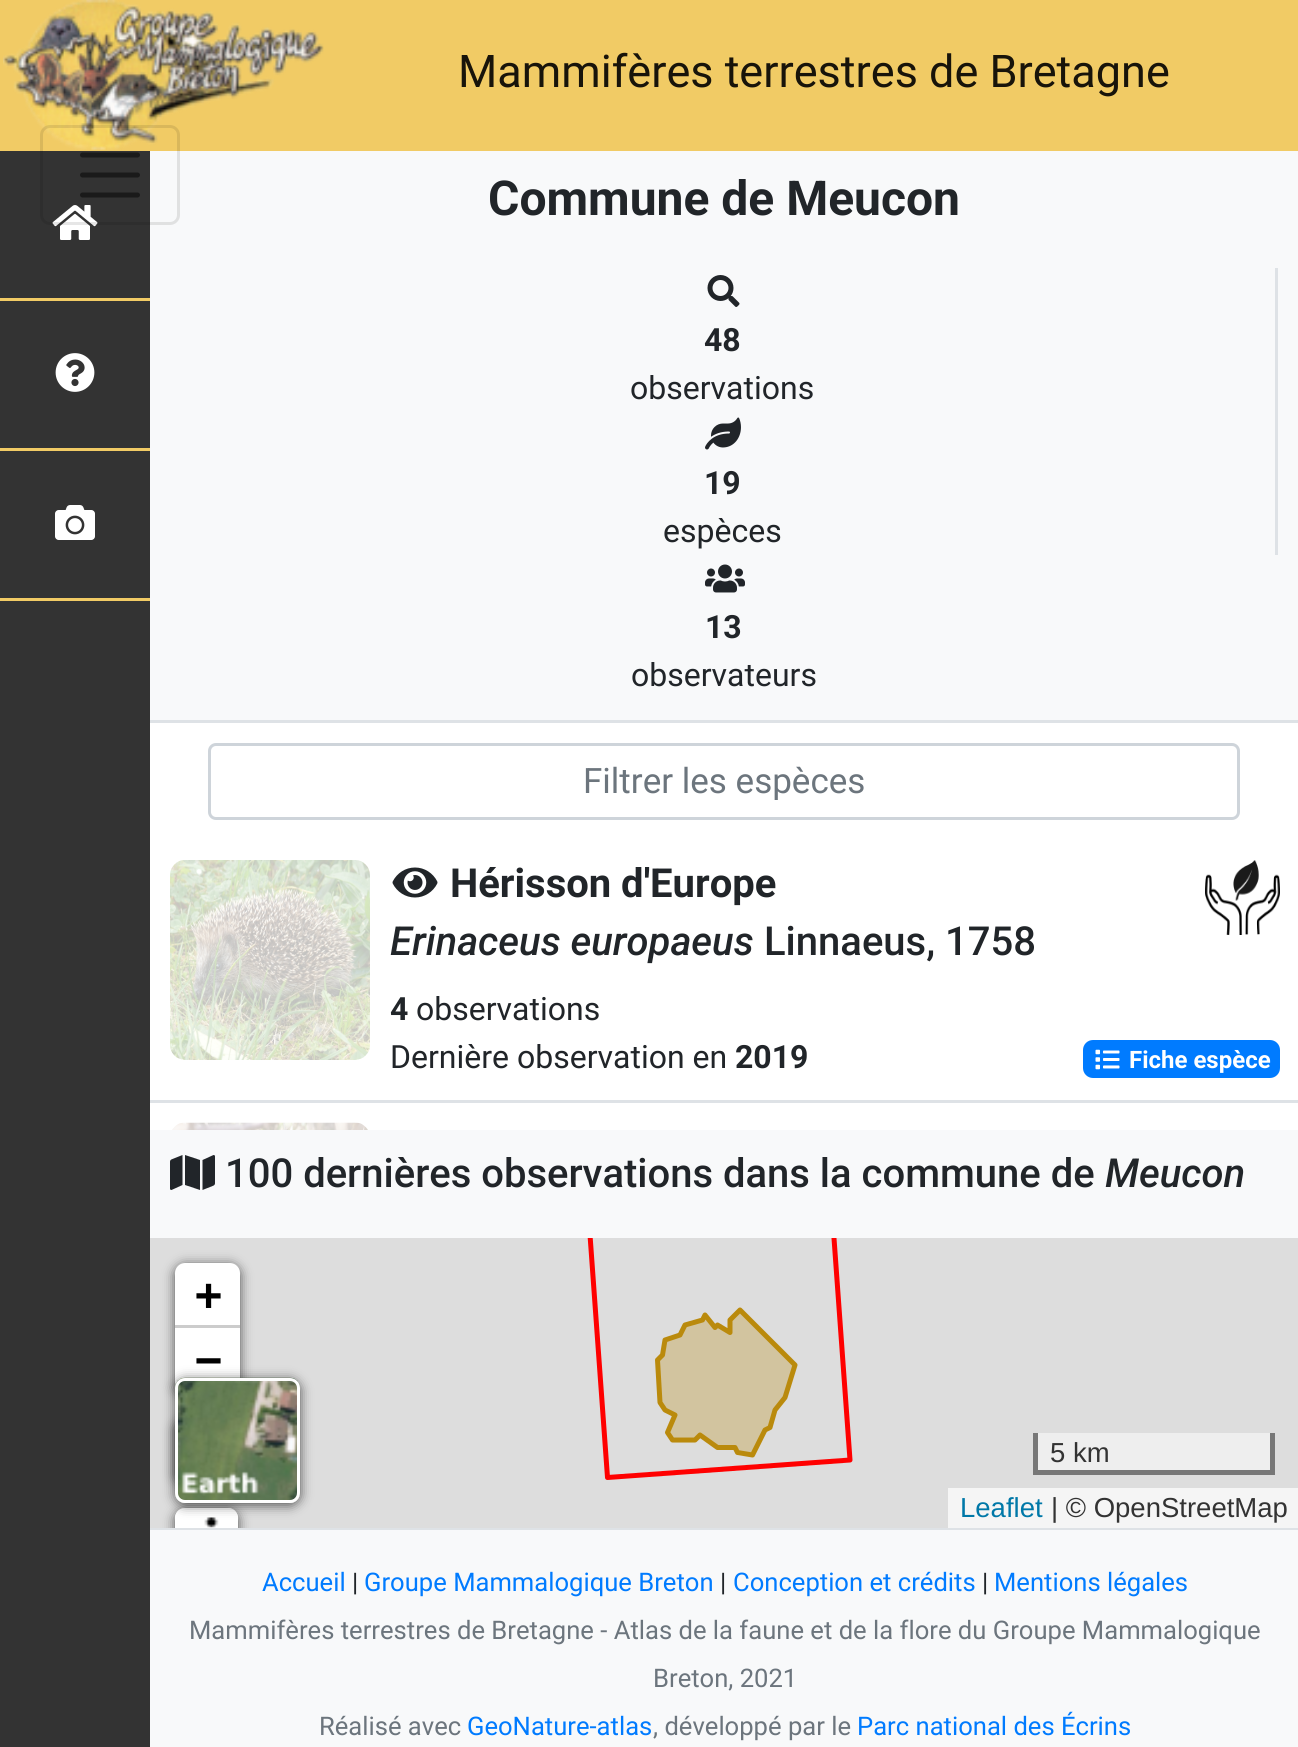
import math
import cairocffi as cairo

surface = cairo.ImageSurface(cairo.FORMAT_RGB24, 1298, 1747)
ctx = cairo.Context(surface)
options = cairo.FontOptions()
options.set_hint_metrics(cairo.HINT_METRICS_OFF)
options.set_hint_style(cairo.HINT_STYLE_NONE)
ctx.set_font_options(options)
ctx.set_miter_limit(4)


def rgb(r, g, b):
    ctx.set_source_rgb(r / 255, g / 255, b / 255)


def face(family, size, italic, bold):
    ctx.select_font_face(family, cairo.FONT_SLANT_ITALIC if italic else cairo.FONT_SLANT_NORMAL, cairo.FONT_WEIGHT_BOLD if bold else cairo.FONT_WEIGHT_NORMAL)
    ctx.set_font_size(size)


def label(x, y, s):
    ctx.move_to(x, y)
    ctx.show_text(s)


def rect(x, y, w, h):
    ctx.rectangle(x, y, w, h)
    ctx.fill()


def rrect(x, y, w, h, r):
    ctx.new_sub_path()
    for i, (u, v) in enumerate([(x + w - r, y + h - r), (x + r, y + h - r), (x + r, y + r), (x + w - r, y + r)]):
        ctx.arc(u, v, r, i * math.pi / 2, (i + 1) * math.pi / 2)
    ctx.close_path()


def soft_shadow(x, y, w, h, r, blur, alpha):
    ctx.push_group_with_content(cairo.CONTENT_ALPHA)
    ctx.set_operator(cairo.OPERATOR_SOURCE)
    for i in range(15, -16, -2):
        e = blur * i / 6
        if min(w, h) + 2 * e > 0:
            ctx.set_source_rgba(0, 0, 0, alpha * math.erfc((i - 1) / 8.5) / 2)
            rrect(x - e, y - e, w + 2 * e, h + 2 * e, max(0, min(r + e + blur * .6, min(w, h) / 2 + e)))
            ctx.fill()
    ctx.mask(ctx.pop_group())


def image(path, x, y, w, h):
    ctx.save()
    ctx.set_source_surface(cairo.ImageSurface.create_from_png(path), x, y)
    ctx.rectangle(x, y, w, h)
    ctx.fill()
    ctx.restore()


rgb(222, 226, 230)
ctx.paint()
rgb(241, 203, 101)
rect(0, 0, 1298, 151)
image('image0.png', 3, 0, 321, 150)
face('Roboto', 45, 0, 0)
rgb(24, 20, 10)
label(458, 87, 'Mammifères terrestres de Bretagne')
rgb(51, 51, 51)
rect(0, 151, 150, 1596)
image('image1.png', 52, 205, 46, 35)
rgb(248, 249, 250)
rect(150, 151, 1148, 569)
rrect(41.5, 126.5, 137, 97, 8.5)
ctx.set_source_rgba(0, 0, 0, 0.1)
ctx.set_line_width(3)
ctx.stroke()
ctx.new_path()
ctx.move_to(82.5, 155)
ctx.line_to(137.5, 155)
ctx.move_to(82.5, 175)
ctx.line_to(137.5, 175)
ctx.move_to(82.5, 195)
ctx.line_to(137.5, 195)
rgb(26, 26, 26)
ctx.set_line_width(5)
ctx.set_line_cap(cairo.LINE_CAP_ROUND)
ctx.stroke()
rgb(241, 203, 101)
rect(0, 298, 150, 3)
rect(0, 448, 150, 3)
image('image2.png', 55, 353, 40, 39)
rect(0, 598, 150, 3)
image('image3.png', 55, 505, 40, 35)
face('Roboto', 48, 0, 1)
rgb(33, 37, 41)
label(488, 215, 'Commune de Meucon')
rgb(222, 226, 230)
rect(1275, 268, 3, 287)
image('image4.png', 707, 275, 33, 32)
face('Roboto', 32, 0, 1)
rgb(33, 37, 41)
label(704, 351, '48')
face('Roboto', 32, 0, 0)
label(630, 399, 'observations')
image('image5.png', 705, 417, 36, 33)
face('Roboto', 32, 0, 1)
label(704, 494, '19')
face('Roboto', 32, 0, 0)
label(663, 542, 'espèces')
image('image6.png', 705, 564, 40, 29)
face('Roboto', 32, 0, 1)
label(705, 638, '13')
face('Roboto', 32, 0, 0)
label(631, 686, 'observateurs')
rgb(255, 255, 255)
rect(150, 723, 1148, 407)
rrect(209.5, 744.5, 1029, 74, 6.5)
rgb(206, 212, 218)
ctx.set_line_width(3)
ctx.set_line_cap(cairo.LINE_CAP_BUTT)
ctx.stroke()
ctx.save()
ctx.rectangle(230, 760, 988, 40)
ctx.clip()
face('Roboto', 35, 0, 0)
rgb(108, 117, 125)
label(583, 793, 'Filtrer les espèces')
ctx.restore()
rgb(222, 226, 230)
rect(150, 1100, 1148, 3)
image('image7.png', 170, 860, 200, 200)
image('image8.png', 392, 867, 46, 31)
face('Roboto', 40, 0, 1)
rgb(33, 37, 41)
label(450, 897, 'Hérisson d\'Europe')
image('image9.png', 1205, 860, 75, 75)
face('Roboto Medium', 40, 1, 0)
label(390, 955, 'Erinaceus europaeus')
face('Roboto Medium', 40, 0, 0)
label(764, 955, 'Linnaeus, 1758')
face('Roboto', 32, 0, 1)
label(390, 1020, '4')
face('Roboto', 32, 0, 0)
label(416, 1020, 'observations')
label(390, 1068, 'Dernière observation en')
face('Roboto', 32, 0, 1)
label(735, 1068, '2019')
rgb(0, 123, 255)
rrect(1083, 1040, 197, 38, 10)
ctx.fill()
image('image10.png', 1095, 1049, 25, 21)
face('Roboto', 24, 0, 1)
rgb(255, 255, 255)
label(1129, 1068, 'Fiche espèce')
image('image11.png', 172, 1122, 196, 8)
rgb(248, 249, 250)
rect(150, 1130, 1148, 108)
image('image12.png', 170, 1155, 45, 35)
face('Roboto Medium', 40, 0, 0)
rgb(33, 37, 41)
label(225, 1187, '100 dernières observations dans la commune de')
face('Roboto Medium', 40, 1, 0)
label(1105, 1187, 'Meucon')
rgb(221, 221, 221)
rect(150, 1238, 1148, 290)
image('image13.png', 587, 1238, 266, 242)
rgb(0, 0, 0)
soft_shadow(175, 1265, 65, 130, 10, 6, 0.65)
rgb(255, 255, 255)
ctx.new_path()
ctx.move_to(185, 1263)
ctx.line_to(230, 1263)
ctx.curve_to(235.5, 1263, 240, 1267.5, 240, 1273)
ctx.line_to(240, 1328)
ctx.line_to(175, 1328)
ctx.line_to(175, 1273)
ctx.curve_to(175, 1267.5, 179.5, 1263, 185, 1263)
ctx.close_path()
ctx.fill()
rgb(204, 204, 204)
rect(175, 1325, 65, 3)
face('DejaVu Sans Mono', 45, 0, 1)
rgb(0, 0, 0)
label(195, 1310, '+')
rgb(255, 255, 255)
ctx.new_path()
ctx.move_to(175, 1328)
ctx.line_to(240, 1328)
ctx.line_to(240, 1383)
ctx.curve_to(240, 1388.5, 235.5, 1393, 230, 1393)
ctx.line_to(185, 1393)
ctx.curve_to(179.5, 1393, 175, 1388.5, 175, 1383)
ctx.close_path()
ctx.fill()
rgb(0, 0, 0)
label(195, 1375, '−')
ctx.save()
ctx.set_fill_rule(cairo.FILL_RULE_EVEN_ODD)
ctx.new_path()
ctx.move_to(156, 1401)
ctx.line_to(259, 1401)
ctx.line_to(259, 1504)
ctx.line_to(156, 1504)
ctx.close_path()
ctx.move_to(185, 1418)
ctx.line_to(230, 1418)
ctx.curve_to(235.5, 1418, 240, 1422.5, 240, 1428)
ctx.line_to(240, 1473)
ctx.curve_to(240, 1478.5, 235.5, 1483, 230, 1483)
ctx.line_to(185, 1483)
ctx.curve_to(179.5, 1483, 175, 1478.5, 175, 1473)
ctx.line_to(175, 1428)
ctx.curve_to(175, 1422.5, 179.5, 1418, 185, 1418)
ctx.close_path()
ctx.clip()
rgb(0, 0, 0)
soft_shadow(175, 1420, 65, 65, 10, 6, 0.65)
ctx.restore()
rgb(248, 249, 250)
rect(150, 1530, 1148, 217)
ctx.save()
ctx.rectangle(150, 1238, 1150, 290)
ctx.clip()
rgb(0, 0, 0)
soft_shadow(175, 1510, 63, 63, 10, 6, 0.65)
ctx.restore()
rgb(255, 255, 255)
ctx.new_path()
ctx.move_to(185, 1508)
ctx.line_to(228, 1508)
ctx.curve_to(233.5, 1508, 238, 1512.5, 238, 1518)
ctx.line_to(238, 1528)
ctx.line_to(175, 1528)
ctx.line_to(175, 1518)
ctx.curve_to(175, 1512.5, 179.5, 1508, 185, 1508)
ctx.close_path()
ctx.fill()
ctx.save()
ctx.rectangle(150, 1238, 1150, 290)
ctx.clip()
rrect(176.5, 1509.5, 60, 59, 8.5)
ctx.stroke()
ctx.restore()
image('image14.png', 204, 1517, 15, 11)
ctx.save()
ctx.set_fill_rule(cairo.FILL_RULE_EVEN_ODD)
ctx.new_path()
ctx.move_to(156, 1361)
ctx.line_to(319, 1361)
ctx.line_to(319, 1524)
ctx.line_to(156, 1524)
ctx.close_path()
ctx.move_to(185, 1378)
ctx.line_to(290, 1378)
ctx.curve_to(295.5, 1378, 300, 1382.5, 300, 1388)
ctx.line_to(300, 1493)
ctx.curve_to(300, 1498.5, 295.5, 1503, 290, 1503)
ctx.line_to(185, 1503)
ctx.curve_to(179.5, 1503, 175, 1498.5, 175, 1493)
ctx.line_to(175, 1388)
ctx.curve_to(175, 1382.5, 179.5, 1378, 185, 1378)
ctx.close_path()
ctx.clip()
rgb(0, 0, 0)
soft_shadow(175, 1380, 125, 125, 10, 6, 0.65)
ctx.restore()
image('image15.png', 175, 1377, 125, 126)
rrect(176.5, 1379.5, 122, 122, 8.5)
ctx.stroke()
rgb(238, 238, 238)
rect(1038, 1433, 232, 37)
rgb(119, 119, 119)
rect(1270, 1433, 5, 42)
rect(1033, 1470, 242, 5)
rect(1033, 1433, 5, 42)
face('Liberation Sans', 27.5, 0, 0)
rgb(51, 51, 51)
label(1050, 1462, '5 km')
rgb(245, 245, 245)
rect(948, 1488, 350, 40)
rgb(0, 120, 168)
label(960, 1517, 'Leaflet')
rgb(51, 51, 51)
label(1051, 1517, '| © OpenStreetMap')
face('Roboto', 25.6, 0, 0)
rgb(0, 123, 255)
label(262, 1591, 'Accueil')
rgb(33, 37, 41)
label(352, 1591, '|')
rgb(0, 123, 255)
label(364, 1591, 'Groupe Mammalogique Breton')
rgb(33, 37, 41)
label(720, 1591, '|')
rgb(0, 123, 255)
label(733, 1591, 'Conception et crédits')
rgb(33, 37, 41)
label(982, 1591, '|')
rgb(0, 123, 255)
label(994, 1591, 'Mentions légales')
rgb(108, 117, 125)
label(189, 1639, 'Mammifères terrestres de Bretagne - Atlas de la faune et de la flore du Groupe Mammalogique')
label(653, 1687, 'Breton, 2021')
label(319, 1735, 'Réalisé avec')
rgb(0, 123, 255)
label(467, 1735, 'GeoNature-atlas')
rgb(108, 117, 125)
label(653, 1735, ', développé par le')
rgb(0, 123, 255)
label(857, 1735, 'Parc national des Écrins')
surface.write_to_png('render.png')
